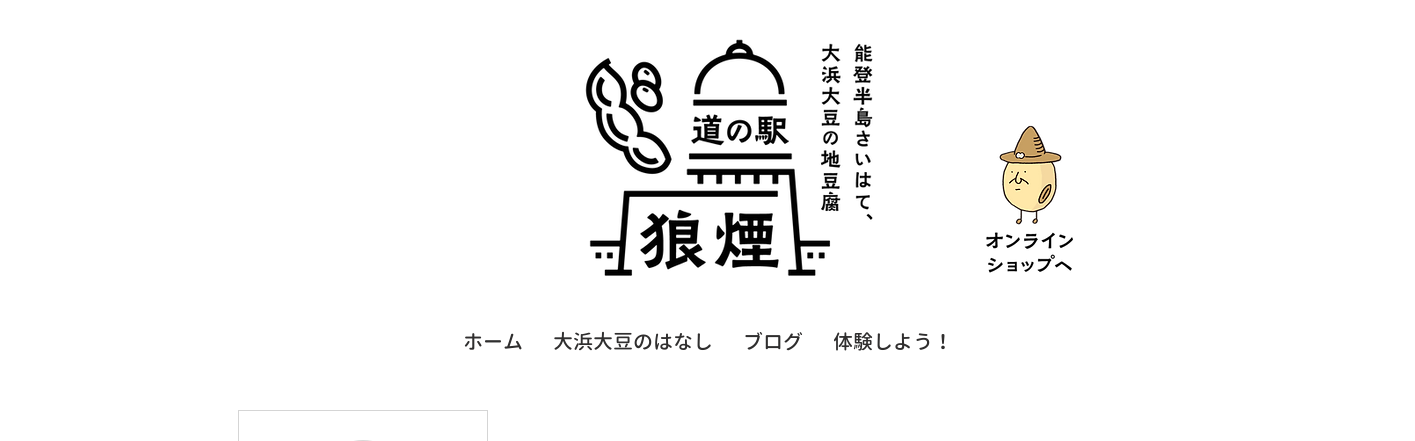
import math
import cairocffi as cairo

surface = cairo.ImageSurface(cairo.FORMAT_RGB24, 1415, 441)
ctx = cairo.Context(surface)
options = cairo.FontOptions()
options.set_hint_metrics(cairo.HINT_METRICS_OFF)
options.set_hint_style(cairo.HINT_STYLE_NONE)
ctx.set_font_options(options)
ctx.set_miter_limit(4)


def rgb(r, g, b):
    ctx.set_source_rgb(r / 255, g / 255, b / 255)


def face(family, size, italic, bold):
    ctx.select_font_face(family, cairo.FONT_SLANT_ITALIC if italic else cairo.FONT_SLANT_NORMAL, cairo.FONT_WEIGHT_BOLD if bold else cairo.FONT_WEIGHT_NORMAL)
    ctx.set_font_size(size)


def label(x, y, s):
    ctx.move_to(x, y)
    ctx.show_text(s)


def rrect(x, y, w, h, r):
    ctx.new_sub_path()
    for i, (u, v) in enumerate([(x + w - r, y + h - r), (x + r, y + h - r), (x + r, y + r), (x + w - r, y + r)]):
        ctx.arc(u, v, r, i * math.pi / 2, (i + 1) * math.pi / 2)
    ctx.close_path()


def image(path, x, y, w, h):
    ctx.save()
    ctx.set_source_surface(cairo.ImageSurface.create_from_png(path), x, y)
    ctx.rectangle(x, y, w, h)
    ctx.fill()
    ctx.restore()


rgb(255, 255, 255)
ctx.paint()
image('image0.png', 584, 39, 289, 237)
image('image1.png', 986, 125, 87, 148)
face('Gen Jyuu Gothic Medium', 20, 0, 0)
rgb(47, 46, 46)
label(463, 349, 'ホーム')
label(553, 349, '大浜大豆のはなし')
label(743, 349, 'ブログ')
label(833, 349, '体験しよう！')
ctx.rectangle(238.5, 410.5, 249, 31)
rgb(213, 213, 213)
ctx.set_line_width(1)
ctx.stroke()
rgb(216, 216, 216)
rrect(318, 440, 90, 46, 45)
ctx.fill()
surface.write_to_png('render.png')
